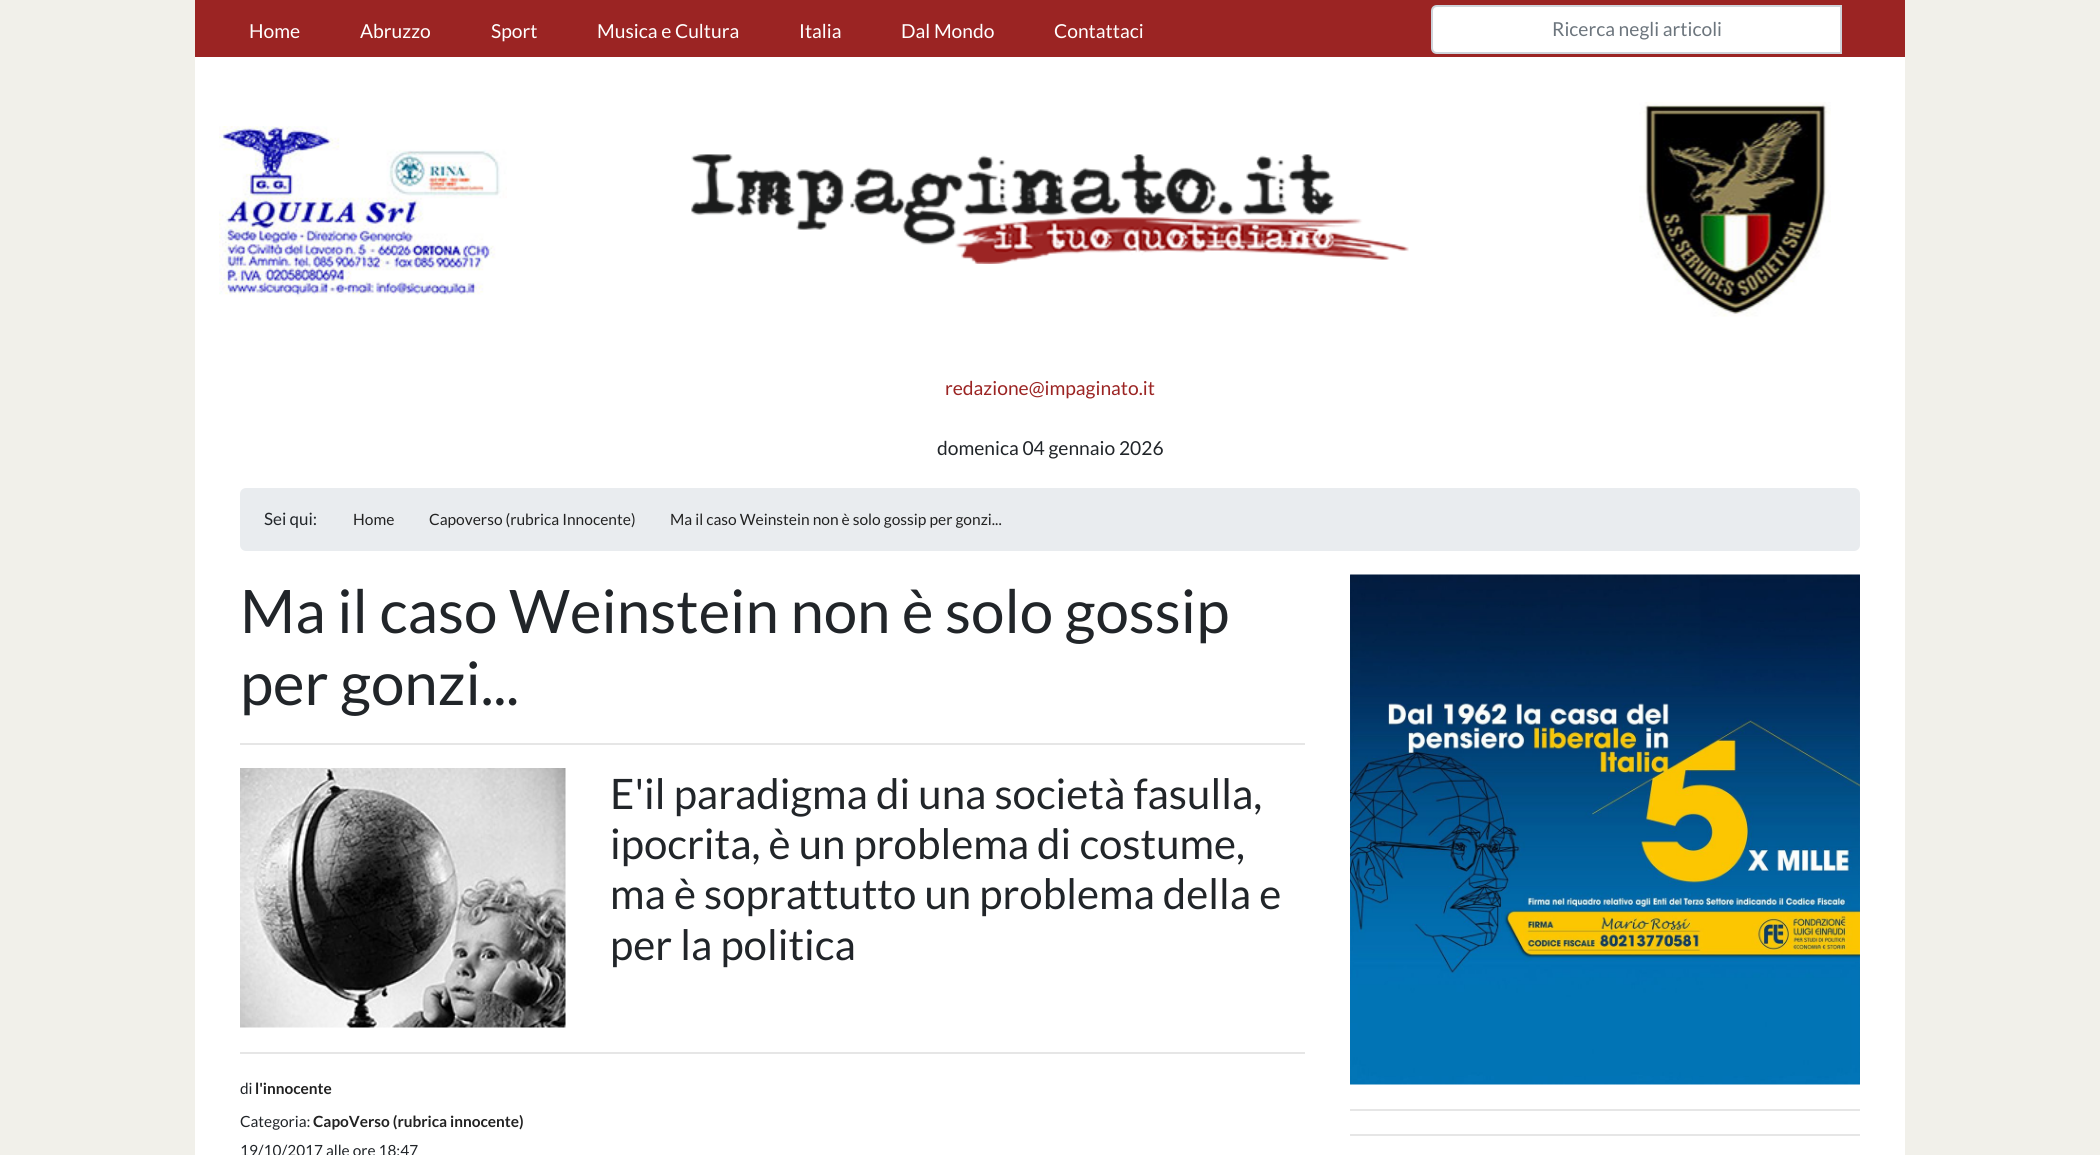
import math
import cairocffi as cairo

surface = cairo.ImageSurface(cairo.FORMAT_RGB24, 2100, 1155)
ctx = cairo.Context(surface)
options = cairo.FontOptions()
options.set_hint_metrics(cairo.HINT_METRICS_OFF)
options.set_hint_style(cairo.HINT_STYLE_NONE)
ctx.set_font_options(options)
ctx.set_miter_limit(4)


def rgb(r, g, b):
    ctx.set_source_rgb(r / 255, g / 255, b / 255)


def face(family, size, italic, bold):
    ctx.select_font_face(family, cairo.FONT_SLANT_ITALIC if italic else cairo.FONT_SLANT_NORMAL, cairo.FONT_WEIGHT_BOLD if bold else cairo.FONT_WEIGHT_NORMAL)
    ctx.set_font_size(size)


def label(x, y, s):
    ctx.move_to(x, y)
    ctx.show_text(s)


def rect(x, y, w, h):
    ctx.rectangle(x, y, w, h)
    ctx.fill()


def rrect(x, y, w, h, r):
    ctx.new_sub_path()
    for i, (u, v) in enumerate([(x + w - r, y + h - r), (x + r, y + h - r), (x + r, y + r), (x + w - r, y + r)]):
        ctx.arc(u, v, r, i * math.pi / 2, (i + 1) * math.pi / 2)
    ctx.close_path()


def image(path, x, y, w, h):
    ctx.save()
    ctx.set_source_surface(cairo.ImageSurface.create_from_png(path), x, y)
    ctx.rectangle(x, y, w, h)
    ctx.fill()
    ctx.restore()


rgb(241, 240, 234)
ctx.paint()
rgb(255, 255, 255)
rect(195, 57, 1710, 1098)
rgb(155, 36, 35)
rect(195, 0, 1710, 57)
face('Lato', 19.25, 0, 0)
rgb(255, 255, 255)
label(249, 38, 'Home')
label(360, 38, 'Abruzzo')
label(491, 38, 'Sport')
label(597, 38, 'Musica e Cultura')
label(799, 38, 'Italia')
label(901, 38, 'Dal Mondo')
label(1054, 38, 'Contattaci')
ctx.new_path()
ctx.move_to(1437, 6)
ctx.line_to(1841, 6)
ctx.line_to(1841, 53)
ctx.line_to(1437, 53)
ctx.curve_to(1434, 53, 1432, 51, 1432, 48)
ctx.line_to(1432, 11)
ctx.curve_to(1432, 8, 1434, 6, 1437, 6)
ctx.close_path()
ctx.fill_preserve()
rgb(206, 212, 218)
ctx.stroke()
rgb(108, 117, 125)
label(1552, 36, 'Ricerca negli articoli')
image('image0.png', 219, 126, 288, 171)
image('image1.png', 691, 154, 718, 110)
image('image2.png', 1639, 102, 192, 215)
rgb(155, 36, 35)
label(945, 395, 'redazione@impaginato.it')
rgb(33, 37, 41)
label(937, 455, 'domenica 04 gennaio 2026')
rgb(233, 236, 239)
rrect(240, 488, 1620, 63, 6)
ctx.fill()
face('Lato', 17, 0, 0)
rgb(33, 37, 41)
label(264, 525, 'Sei qui:')
face('Lato', 15.55, 0, 0)
rgb(34, 34, 34)
label(353, 525, 'Home')
label(429, 525, 'Capoverso (rubrica Innocente)')
label(670, 525, 'Ma il caso Weinstein non è solo gossip per gonzi...')
face('Lato', 60, 0, 0)
rgb(33, 37, 41)
label(240, 633, 'Ma il caso Weinstein non è solo gossip')
label(240, 705, 'per gonzi...')
rgb(230, 230, 230)
rect(240, 743, 1065, 2)
image('image3.png', 240, 768, 326, 260)
face('Lato', 42, 0, 0)
rgb(33, 37, 41)
label(610, 809, 'E\'il paradigma di una società fasulla,')
label(610, 859, 'ipocrita, è un problema di costume,')
label(610, 909, 'ma è soprattutto un problema della e')
label(610, 960, 'per la politica')
rgb(230, 230, 230)
rect(240, 1052, 1065, 2)
face('Lato', 15.4, 0, 0)
rgb(33, 37, 41)
label(240, 1094, 'di')
face('Lato', 15.4, 0, 1)
rgb(34, 34, 34)
label(255, 1094, 'l\'innocente')
face('Lato', 15.4, 0, 0)
rgb(33, 37, 41)
label(240, 1127, 'Categoria:')
face('Lato', 15.4, 0, 1)
rgb(34, 34, 34)
label(313, 1127, 'CapoVerso (rubrica innocente)')
face('Lato', 15.4, 0, 0)
rgb(33, 37, 41)
label(240, 1156, '19/10/2017 alle ore 18:47')
image('image4.png', 1350, 574, 510, 511)
rgb(230, 230, 230)
rect(1350, 1109, 510, 2)
rect(1350, 1134, 510, 2)
surface.write_to_png('render.png')
